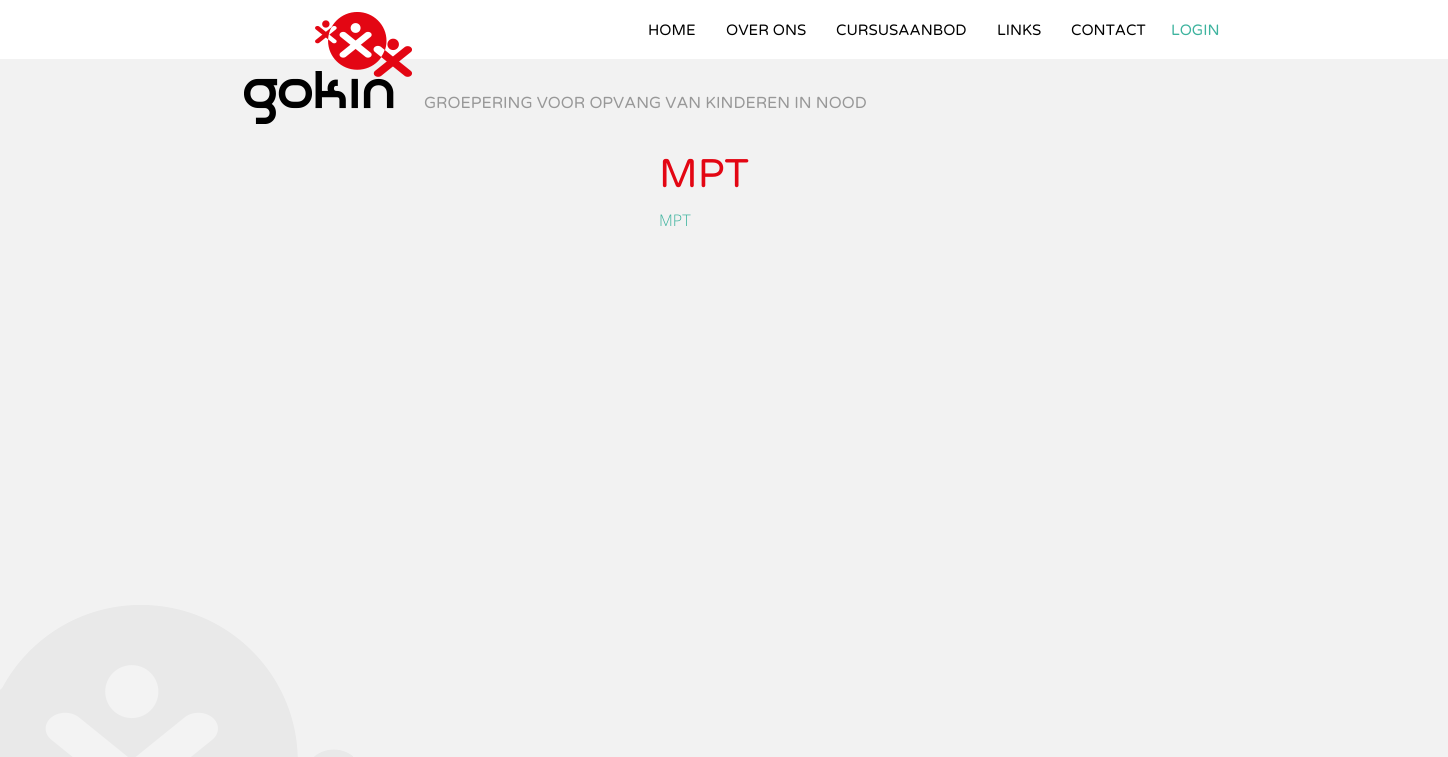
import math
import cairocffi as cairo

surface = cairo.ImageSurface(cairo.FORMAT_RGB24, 1448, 757)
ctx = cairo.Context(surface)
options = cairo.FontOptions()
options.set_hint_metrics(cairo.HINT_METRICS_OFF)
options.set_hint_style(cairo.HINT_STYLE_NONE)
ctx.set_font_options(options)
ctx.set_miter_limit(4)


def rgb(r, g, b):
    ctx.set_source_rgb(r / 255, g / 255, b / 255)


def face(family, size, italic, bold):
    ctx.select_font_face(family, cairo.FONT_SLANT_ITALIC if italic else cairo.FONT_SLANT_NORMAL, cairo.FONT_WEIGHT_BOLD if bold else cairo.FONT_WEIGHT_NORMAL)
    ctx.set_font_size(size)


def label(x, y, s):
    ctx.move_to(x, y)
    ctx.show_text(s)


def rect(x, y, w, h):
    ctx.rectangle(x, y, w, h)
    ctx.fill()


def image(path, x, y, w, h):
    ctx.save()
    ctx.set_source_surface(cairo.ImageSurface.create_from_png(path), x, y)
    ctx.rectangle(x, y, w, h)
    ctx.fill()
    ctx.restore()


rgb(242, 242, 242)
ctx.paint()
rgb(255, 255, 255)
rect(0, 0, 1448, 59)
face('Varela Round', 15, 0, 0)
rgb(0, 0, 0)
label(648, 35, 'HOME')
label(726, 35, 'OVER ONS')
label(836, 35, 'CURSUSAANBOD')
label(997, 35, 'LINKS')
label(1071, 35, 'CONTACT')
rgb(61, 179, 158)
label(1171, 35, 'LOGIN')
image('image0.png', 244, 12, 168, 112)
face('Varela Round', 16, 0, 0)
rgb(152, 152, 152)
label(424, 108, 'GROEPERING VOOR OPVANG VAN KINDEREN IN NOOD')
face('Varela Round', 40, 0, 0)
rgb(227, 6, 19)
label(659, 187, 'MPT')
face('Open Sans Light', 16, 0, 0)
rgb(61, 179, 158)
label(659, 226, 'MPT')
image('image1.png', 0, 605, 353, 152)
surface.write_to_png('render.png')
